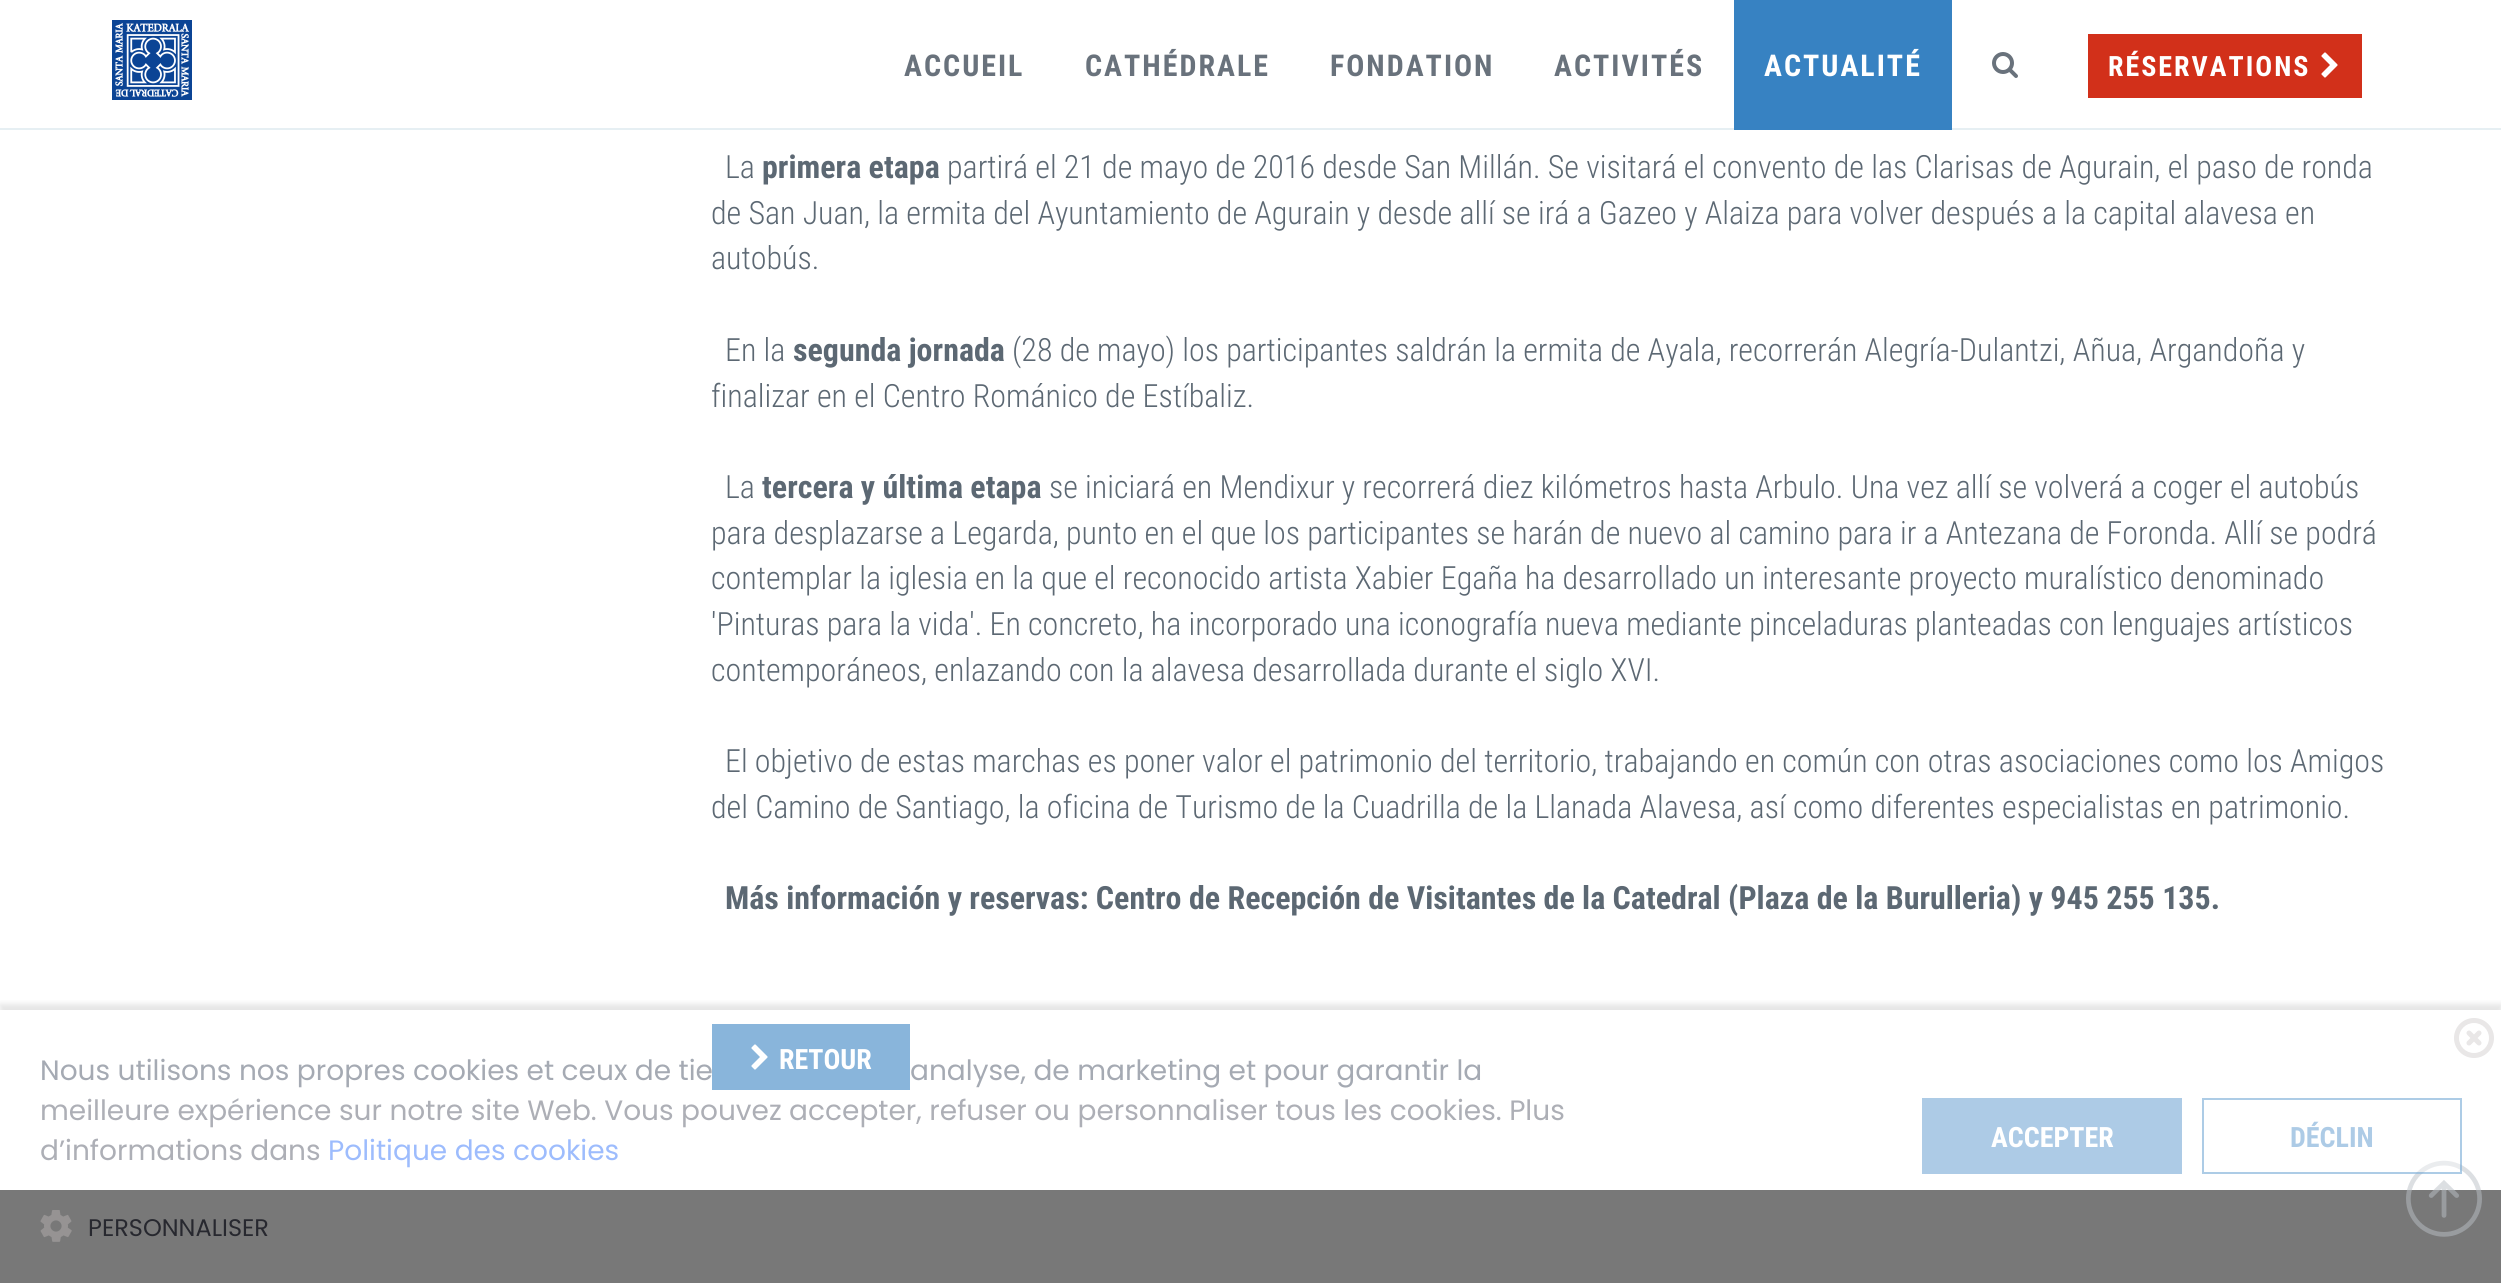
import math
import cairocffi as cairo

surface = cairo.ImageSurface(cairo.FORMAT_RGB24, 2501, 1283)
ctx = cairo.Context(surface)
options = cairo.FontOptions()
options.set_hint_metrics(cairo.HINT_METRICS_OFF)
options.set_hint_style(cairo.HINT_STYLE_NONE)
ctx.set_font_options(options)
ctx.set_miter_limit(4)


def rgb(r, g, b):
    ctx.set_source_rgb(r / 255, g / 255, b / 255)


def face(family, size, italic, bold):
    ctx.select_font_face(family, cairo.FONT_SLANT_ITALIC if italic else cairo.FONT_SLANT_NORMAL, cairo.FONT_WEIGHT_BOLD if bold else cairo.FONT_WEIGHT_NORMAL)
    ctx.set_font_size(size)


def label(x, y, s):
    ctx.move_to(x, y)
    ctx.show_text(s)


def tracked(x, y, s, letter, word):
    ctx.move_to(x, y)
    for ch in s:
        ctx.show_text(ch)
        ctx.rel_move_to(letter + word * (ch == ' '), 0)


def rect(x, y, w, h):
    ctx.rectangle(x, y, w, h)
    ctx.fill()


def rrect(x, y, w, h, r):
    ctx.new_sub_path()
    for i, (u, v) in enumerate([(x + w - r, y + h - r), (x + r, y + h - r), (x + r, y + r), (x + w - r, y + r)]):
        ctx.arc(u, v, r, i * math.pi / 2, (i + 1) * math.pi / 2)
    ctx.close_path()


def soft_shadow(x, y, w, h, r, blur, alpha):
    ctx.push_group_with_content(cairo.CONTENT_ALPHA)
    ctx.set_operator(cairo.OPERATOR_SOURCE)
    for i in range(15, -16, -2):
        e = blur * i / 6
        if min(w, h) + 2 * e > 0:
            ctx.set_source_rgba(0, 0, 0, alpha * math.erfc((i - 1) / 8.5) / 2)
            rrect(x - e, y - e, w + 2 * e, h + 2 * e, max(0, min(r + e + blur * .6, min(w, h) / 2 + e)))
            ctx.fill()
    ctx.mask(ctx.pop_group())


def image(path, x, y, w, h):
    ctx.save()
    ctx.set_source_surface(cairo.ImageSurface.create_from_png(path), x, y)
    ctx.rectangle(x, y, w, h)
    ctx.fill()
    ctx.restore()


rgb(255, 255, 255)
ctx.paint()
rgb(230, 239, 243)
rect(0, 128, 2501, 2)
image('image0.png', 112, 20, 80, 80)
face('Roboto Condensed', 30, 0, 1)
rgb(105, 114, 124)
tracked(904, 76, 'ACCUEIL', 2, 0)
tracked(1085, 76, 'CATHÉDRALE', 2, 0)
tracked(1330, 76, 'FONDATION', 2, 0)
tracked(1554, 76, 'ACTIVITÉS', 2, 0)
rgb(55, 130, 194)
rect(1734, 0, 218, 130)
rgb(255, 255, 255)
tracked(1764, 76, 'ACTUALITÉ', 2, 0)
image('image1.png', 1992, 52, 26, 26)
rgb(210, 48, 26)
rect(2088, 34, 274, 64)
face('Roboto Condensed', 28, 0, 1)
rgb(255, 255, 255)
tracked(2108, 76, 'RÉSERVATIONS', 2, 0)
image('image2.png', 2321, 52, 17, 26)
face('Roboto Condensed Light', 32, 0, 0)
rgb(92, 104, 115)
label(725, 178, 'La')
face('Roboto Condensed', 32, 0, 1)
label(762, 178, 'primera etapa')
face('Roboto Condensed Light', 32, 0, 0)
label(947, 178, 'partirá el 21 de mayo de 2016 desde San Millán. Se visitará el convento de las Clarisas de Agurain, el paso de ronda')
label(711, 224, 'de San Juan, la ermita del Ayuntamiento de Agurain y desde allí se irá a Gazeo y Alaiza para volver después a la capital alavesa en')
label(711, 269, 'autobús.')
label(725, 361, 'En la')
face('Roboto Condensed', 32, 0, 1)
label(793, 361, 'segunda jornada')
face('Roboto Condensed Light', 32, 0, 0)
label(1012, 361, '(28 de mayo) los participantes saldrán la ermita de Ayala, recorrerán Alegría-Dulantzi, Añua, Argandoña y')
label(711, 407, 'finalizar en el Centro Románico de Estíbaliz.')
label(725, 498, 'La')
face('Roboto Condensed', 32, 0, 1)
label(762, 498, 'tercera y última etapa')
face('Roboto Condensed Light', 32, 0, 0)
label(1049, 498, 'se iniciará en Mendixur y recorrerá diez kilómetros hasta Arbulo. Una vez allí se volverá a coger el autobús')
label(711, 544, 'para desplazarse a Legarda, punto en el que los participantes se harán de nuevo al camino para ir a Antezana de Foronda. Allí se podrá')
label(711, 589, 'contemplar la iglesia en la que el reconocido artista Xabier Egaña ha desarrollado un interesante proyecto muralístico denominado')
label(711, 635, '\'Pinturas para la vida\'. En concreto, ha incorporado una iconografía nueva mediante pinceladuras planteadas con lenguajes artísticos')
label(711, 681, 'contemporáneos, enlazando con la alavesa desarrollada durante el siglo XVI.')
label(725, 772, 'El objetivo de estas marchas es poner valor el patrimonio del territorio, trabajando en común con otras asociaciones como los Amigos')
label(711, 818, 'del Camino de Santiago, la oficina de Turismo de la Cuadrilla de la Llanada Alavesa, así como diferentes especialistas en patrimonio.')
face('Roboto Condensed', 32, 0, 1)
label(725, 909, 'Más información y reservas: Centro de Recepción de Visitantes de la Catedral (Plaza de la Burulleria) y 945 255 135.')
rgb(137, 181, 219)
rect(712, 1024, 198, 66)
image('image3.png', 751, 1044, 17, 26)
face('Roboto Condensed', 28, 0, 1)
rgb(255, 255, 255)
label(779, 1069, 'RETOUR')
rgb(120, 120, 120)
rect(0, 1190, 2501, 93)
image('image6.png', 2406, 1160, 76, 77)
ctx.save()
ctx.rectangle(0, 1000, 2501, 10)
ctx.clip()
rgb(150, 150, 150)
soft_shadow(0, 1004, 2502, 274, 0, 3, 0.25)
ctx.restore()
image('image4.png', 2454, 1018, 40, 40)
face('Poppins', 28, 0, 0)
rgb(165, 170, 179)
label(40, 1080, 'Nous utilisons nos propres cookies et ceux de tie')
label(910, 1080, 'analyse, de marketing et pour garantir la')
rgb(173, 175, 182)
label(40, 1120, 'meilleure expérience sur notre site Web. Vous pouvez accepter, refuser ou personnaliser tous les cookies. Plus')
label(40, 1160, 'd’informations dans')
rgb(157, 188, 253)
label(328, 1160, 'Politique des cookies')
image('image5.png', 40, 1210, 32, 32)
face('Poppins', 24, 0, 0)
rgb(39, 40, 47)
label(88, 1236, 'PERSONNALISER')
rgb(173, 203, 230)
rect(1922, 1098, 260, 76)
face('Roboto Condensed', 28, 0, 1)
rgb(255, 255, 255)
label(1991, 1147, 'ACCEPTER')
ctx.set_source_rgba(1, 1, 1, 0.41)
rect(2415, 1160, 47, 14)
ctx.rectangle(2203, 1099, 258, 74)
ctx.set_source_rgba(0.216, 0.51, 0.761, 0.41)
ctx.stroke()
rgb(173, 203, 230)
label(2290, 1147, 'DÉCLIN')
surface.write_to_png('render.png')
